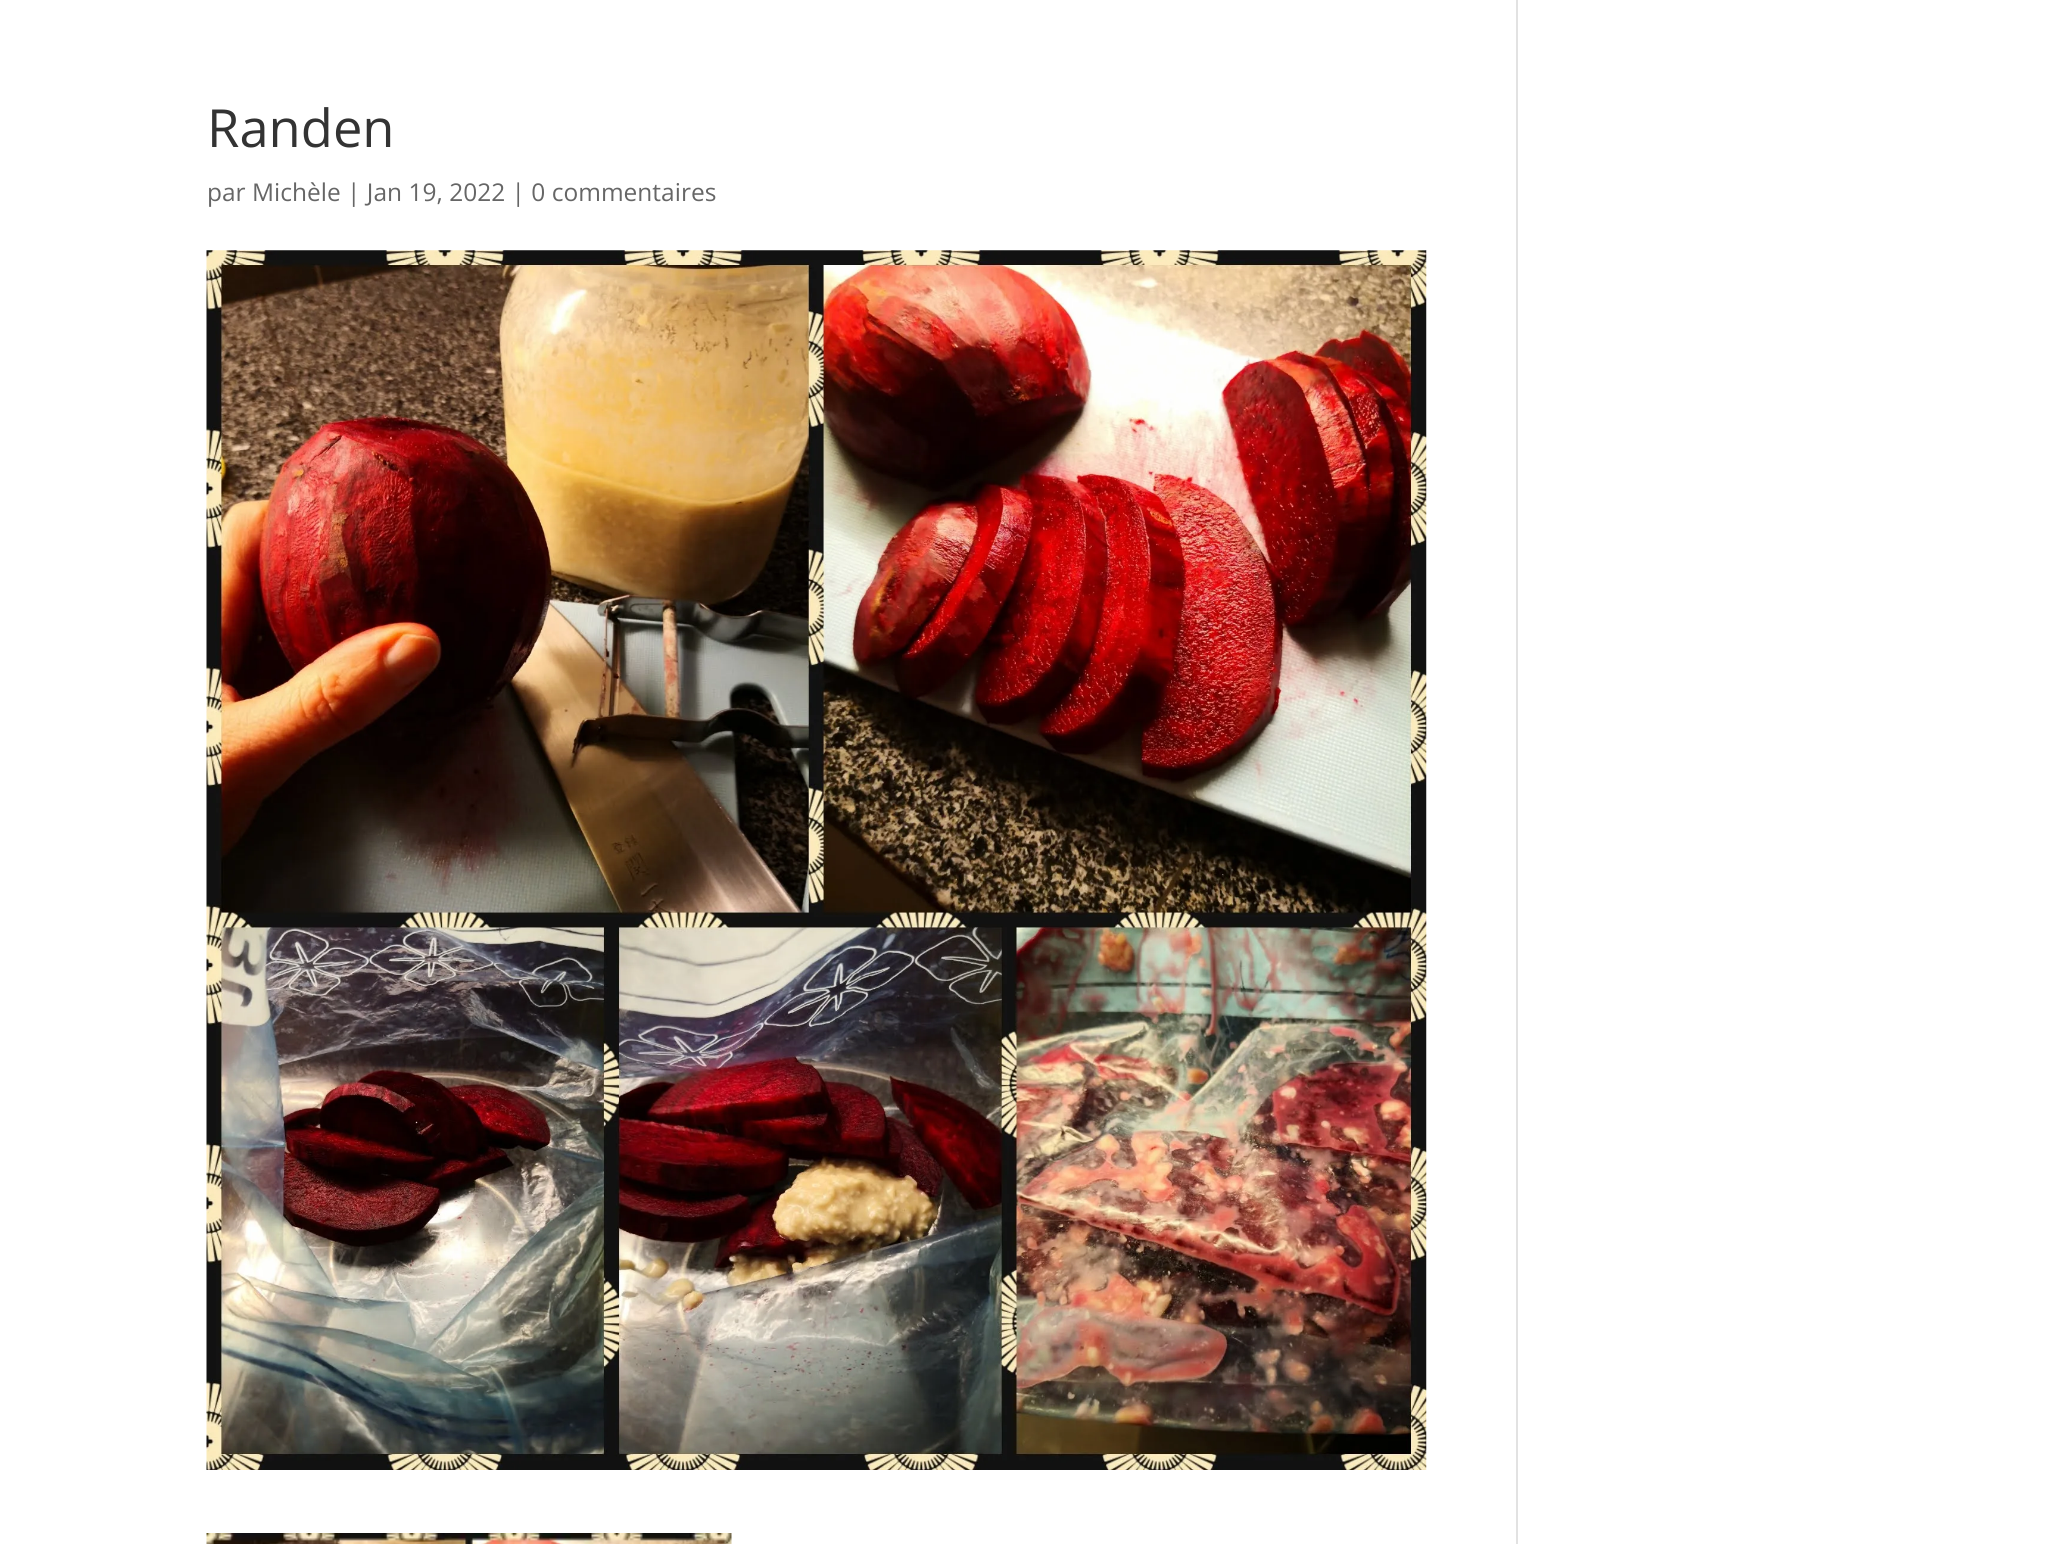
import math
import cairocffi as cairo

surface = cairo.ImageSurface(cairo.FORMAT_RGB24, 2070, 1544)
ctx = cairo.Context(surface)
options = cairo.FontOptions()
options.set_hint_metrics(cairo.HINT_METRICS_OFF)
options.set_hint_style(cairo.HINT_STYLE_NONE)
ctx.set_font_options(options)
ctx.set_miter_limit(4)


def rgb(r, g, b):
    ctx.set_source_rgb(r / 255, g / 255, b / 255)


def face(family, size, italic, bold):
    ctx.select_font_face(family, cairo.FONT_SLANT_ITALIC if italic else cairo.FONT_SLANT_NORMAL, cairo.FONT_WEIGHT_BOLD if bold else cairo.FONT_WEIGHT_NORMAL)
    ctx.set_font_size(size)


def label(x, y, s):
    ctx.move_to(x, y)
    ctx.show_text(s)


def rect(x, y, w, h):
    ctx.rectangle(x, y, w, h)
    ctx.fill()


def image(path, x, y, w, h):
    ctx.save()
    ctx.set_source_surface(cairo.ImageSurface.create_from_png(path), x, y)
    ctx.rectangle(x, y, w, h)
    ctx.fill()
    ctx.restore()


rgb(255, 255, 255)
ctx.paint()
face('Open Sans', 52.5, 0, 0)
rgb(51, 51, 51)
label(207, 147, 'Randen')
face('Open Sans', 24.5, 0, 0)
rgb(102, 102, 102)
label(207, 201, 'par Michèle | Jan 19, 2022 | 0 commentaires')
image('image0.png', 206, 250, 1221, 1220)
image('image1.png', 206, 1533, 526, 11)
rgb(226, 226, 226)
rect(1516, 0, 2, 1544)
surface.write_to_png('render.png')
